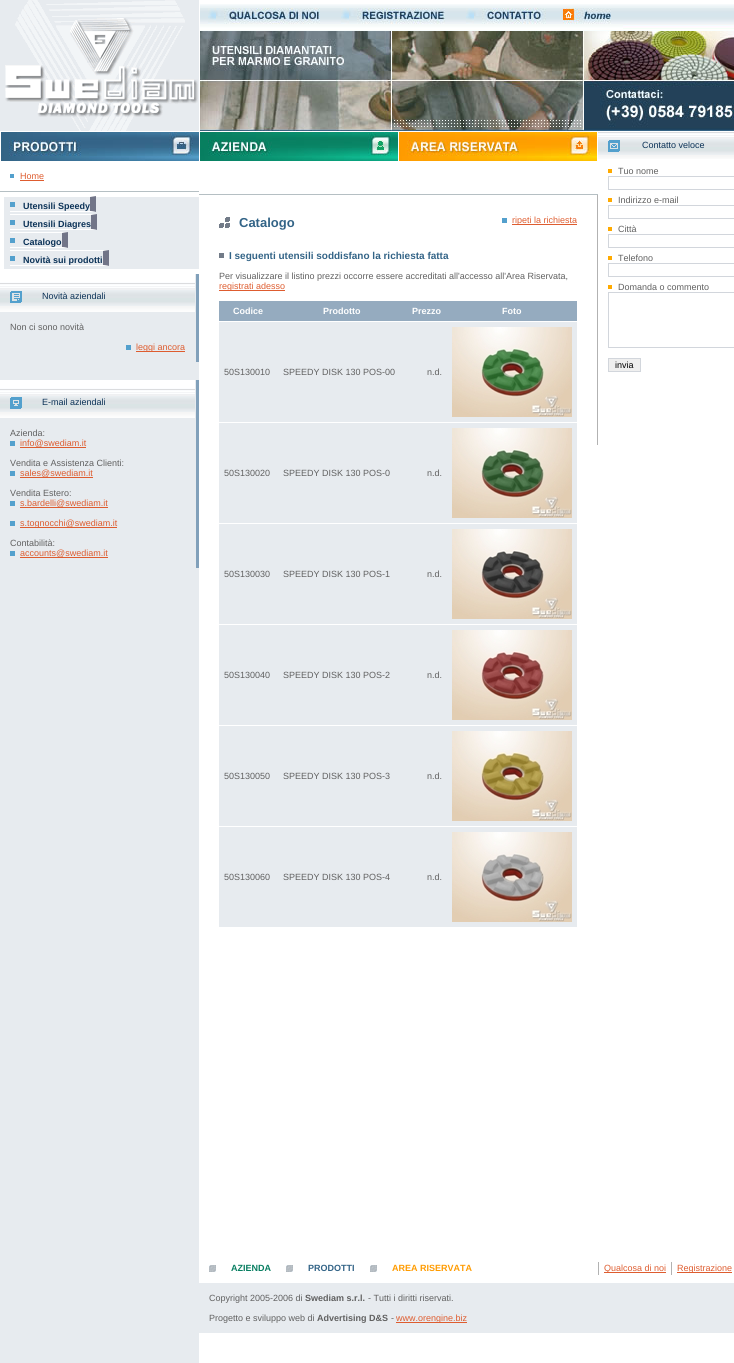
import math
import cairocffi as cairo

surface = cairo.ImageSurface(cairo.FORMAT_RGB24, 734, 1363)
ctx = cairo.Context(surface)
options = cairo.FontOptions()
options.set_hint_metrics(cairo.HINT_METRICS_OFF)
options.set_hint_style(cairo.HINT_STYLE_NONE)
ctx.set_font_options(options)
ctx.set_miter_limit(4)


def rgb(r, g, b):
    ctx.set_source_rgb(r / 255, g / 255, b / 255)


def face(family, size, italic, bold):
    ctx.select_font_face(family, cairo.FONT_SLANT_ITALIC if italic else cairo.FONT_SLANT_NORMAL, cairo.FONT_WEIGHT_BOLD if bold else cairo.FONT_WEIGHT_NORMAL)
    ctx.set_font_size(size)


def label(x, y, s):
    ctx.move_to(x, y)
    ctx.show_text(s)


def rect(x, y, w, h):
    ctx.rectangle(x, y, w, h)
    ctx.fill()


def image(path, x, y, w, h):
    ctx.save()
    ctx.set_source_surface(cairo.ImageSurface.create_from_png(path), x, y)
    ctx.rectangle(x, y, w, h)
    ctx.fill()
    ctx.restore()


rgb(255, 255, 255)
ctx.paint()
rgb(231, 235, 239)
rect(0, 0, 199, 131)
image('image0.png', 5, 0, 193, 131)
image('image1.png', 200, 4, 534, 27)
image('image2.png', 200, 8, 133, 21)
image('image3.png', 333, 8, 125, 21)
image('image4.png', 458, 8, 97, 21)
image('image5.png', 555, 8, 68, 21)
image('image6.png', 200, 31, 534, 100)
rect(0, 197, 199, 1166)
image('image7.png', 1, 132, 198, 29)
rgb(181, 191, 195)
rect(0, 191, 199, 1)
face('Liberation Sans', 9, 0, 0)
rgb(222, 92, 47)
label(20, 179, 'Home')
rgb(83, 160, 205)
rect(10, 174, 4, 4)
rgb(222, 92, 47)
rect(20, 180, 24, 1)
rgb(255, 255, 255)
rect(0, 197, 4, 72)
face('Liberation Sans', 9, 0, 1)
rgb(11, 50, 87)
label(23, 209, 'Utensili Speedy')
rgb(83, 160, 205)
rect(10, 202, 5, 5)
rgb(114, 117, 136)
ctx.new_path()
ctx.move_to(96, 196)
ctx.line_to(96, 212)
ctx.line_to(90, 211)
ctx.line_to(90, 197)
ctx.close_path()
ctx.fill()
rgb(255, 255, 255)
ctx.new_path()
ctx.move_to(96, 212)
ctx.line_to(10, 212)
ctx.line_to(10, 211)
ctx.line_to(90, 211)
ctx.close_path()
ctx.fill()
rgb(11, 50, 87)
label(23, 227, 'Utensili Diagres')
rgb(83, 160, 205)
rect(10, 220, 5, 5)
rgb(255, 255, 255)
ctx.new_path()
ctx.move_to(10, 214)
ctx.line_to(97, 214)
ctx.line_to(91, 215)
ctx.line_to(10, 215)
ctx.close_path()
ctx.fill()
rgb(114, 117, 136)
ctx.new_path()
ctx.move_to(97, 214)
ctx.line_to(97, 230)
ctx.line_to(91, 229)
ctx.line_to(91, 215)
ctx.close_path()
ctx.fill()
rgb(255, 255, 255)
ctx.new_path()
ctx.move_to(97, 230)
ctx.line_to(10, 230)
ctx.line_to(10, 229)
ctx.line_to(91, 229)
ctx.close_path()
ctx.fill()
rgb(11, 50, 87)
label(23, 245, 'Catalogo')
rgb(83, 160, 205)
rect(10, 238, 5, 5)
rgb(255, 255, 255)
ctx.new_path()
ctx.move_to(10, 232)
ctx.line_to(68, 232)
ctx.line_to(62, 233)
ctx.line_to(10, 233)
ctx.close_path()
ctx.fill()
rgb(114, 117, 136)
ctx.new_path()
ctx.move_to(68, 232)
ctx.line_to(68, 248)
ctx.line_to(62, 247)
ctx.line_to(62, 233)
ctx.close_path()
ctx.fill()
rgb(255, 255, 255)
ctx.new_path()
ctx.move_to(68, 248)
ctx.line_to(10, 248)
ctx.line_to(10, 247)
ctx.line_to(62, 247)
ctx.close_path()
ctx.fill()
rgb(11, 50, 87)
label(23, 263, 'Novità sui prodotti')
rgb(83, 160, 205)
rect(10, 256, 5, 5)
rgb(255, 255, 255)
ctx.new_path()
ctx.move_to(10, 250)
ctx.line_to(109, 250)
ctx.line_to(103, 251)
ctx.line_to(10, 251)
ctx.close_path()
ctx.fill()
rgb(114, 117, 136)
ctx.new_path()
ctx.move_to(109, 250)
ctx.line_to(109, 266)
ctx.line_to(103, 265)
ctx.line_to(103, 251)
ctx.close_path()
ctx.fill()
rgb(255, 255, 255)
ctx.new_path()
ctx.move_to(109, 266)
ctx.line_to(10, 266)
ctx.line_to(10, 265)
ctx.line_to(103, 265)
ctx.close_path()
ctx.fill()
rect(0, 269, 199, 5)
rgb(129, 160, 186)
rect(196, 274, 3, 88)
image('image8.png', 0, 274, 32, 38)
image('image9.png', 10, 291, 12, 12)
image('image10.png', 32, 274, 163, 38)
face('Liberation Sans', 9, 0, 0)
rgb(11, 50, 87)
label(42, 299, 'Novità aziendali')
rgb(96, 96, 96)
label(10, 330, 'Non ci sono novità')
rgb(222, 92, 47)
rect(136, 351, 49, 1)
label(136, 350, 'leggi ancora')
rgb(83, 160, 205)
rect(126, 345, 5, 5)
rgb(129, 160, 186)
rect(196, 380, 3, 188)
image('image8.png', 0, 380, 32, 38)
image('image11.png', 10, 397, 12, 12)
image('image10.png', 32, 380, 163, 38)
rgb(11, 50, 87)
label(42, 405, 'E-mail aziendali')
rgb(96, 96, 96)
label(10, 436, 'Azienda:')
rgb(222, 92, 47)
rect(20, 447, 66, 1)
label(20, 446, 'info@swediam.it')
rgb(83, 160, 205)
rect(10, 441, 5, 5)
rgb(96, 96, 96)
label(10, 466, 'Vendita e Assistenza Clienti:')
rgb(222, 92, 47)
rect(20, 477, 73, 1)
label(20, 476, 'sales@swediam.it')
rgb(83, 160, 205)
rect(10, 471, 5, 5)
rgb(96, 96, 96)
label(10, 496, 'Vendita Estero:')
rgb(222, 92, 47)
rect(20, 507, 88, 1)
label(20, 506, 's.bardelli@swediam.it')
rgb(83, 160, 205)
rect(10, 501, 5, 5)
rgb(222, 92, 47)
rect(20, 527, 97, 1)
label(20, 526, 's.tognocchi@swediam.it')
rgb(83, 160, 205)
rect(10, 521, 5, 5)
rgb(96, 96, 96)
label(10, 546, 'Contabilità:')
rgb(222, 92, 47)
rect(20, 557, 88, 1)
label(20, 556, 'accounts@swediam.it')
rgb(83, 160, 205)
rect(10, 551, 5, 5)
image('image12.png', 200, 132, 198, 29)
image('image13.png', 399, 132, 198, 29)
rgb(181, 191, 195)
rect(199, 194, 399, 1)
image('image14.png', 219, 217, 11, 11)
face('Liberation Sans', 13, 0, 1)
rgb(51, 100, 135)
label(239, 227, 'Catalogo')
rgb(222, 92, 47)
rect(512, 224, 65, 1)
face('Liberation Sans', 9, 0, 0)
label(512, 223, 'ripeti la richiesta')
rgb(83, 160, 205)
rect(502, 218, 5, 5)
rgb(114, 123, 136)
rect(219, 253, 5, 5)
face('Liberation Sans', 10, 0, 1)
rgb(51, 100, 135)
label(229, 259, 'I seguenti utensili soddisfano la richiesta fatta')
face('Liberation Sans', 9, 0, 0)
rgb(96, 96, 96)
label(219, 279, 'Per visualizzare il listino prezzi occorre essere accreditati all\'accesso all\'Area Riservata,')
rgb(222, 92, 47)
rect(219, 290, 66, 1)
label(219, 289, 'registrati adesso')
rgb(149, 171, 191)
rect(219, 301, 358, 20)
face('Liberation Sans', 9, 0, 1)
rgb(255, 255, 255)
label(233, 314, 'Codice')
label(323, 314, 'Prodotto')
label(412, 314, 'Prezzo')
label(502, 314, 'Foto')
rgb(231, 235, 239)
rect(219, 322, 358, 100)
face('Liberation Sans', 9, 0, 0)
rgb(96, 96, 96)
label(224, 375, '50S130010')
label(283, 375, 'SPEEDY DISK 130 POS-00')
label(427, 375, 'n.d.')
image('image15.png', 452, 327, 120, 90)
rgb(231, 235, 239)
rect(219, 423, 358, 100)
rgb(96, 96, 96)
label(224, 476, '50S130020')
label(283, 476, 'SPEEDY DISK 130 POS-0')
label(427, 476, 'n.d.')
image('image16.png', 452, 428, 120, 90)
rgb(231, 235, 239)
rect(219, 524, 358, 100)
rgb(96, 96, 96)
label(224, 577, '50S130030')
label(283, 577, 'SPEEDY DISK 130 POS-1')
label(427, 577, 'n.d.')
image('image17.png', 452, 529, 120, 90)
rgb(231, 235, 239)
rect(219, 625, 358, 100)
rgb(96, 96, 96)
label(224, 678, '50S130040')
label(283, 678, 'SPEEDY DISK 130 POS-2')
label(427, 678, 'n.d.')
image('image18.png', 452, 630, 120, 90)
rgb(231, 235, 239)
rect(219, 726, 358, 100)
rgb(96, 96, 96)
label(224, 779, '50S130050')
label(283, 779, 'SPEEDY DISK 130 POS-3')
label(427, 779, 'n.d.')
image('image19.png', 452, 731, 120, 90)
rgb(231, 235, 239)
rect(219, 827, 358, 100)
rgb(96, 96, 96)
label(224, 880, '50S130060')
label(283, 880, 'SPEEDY DISK 130 POS-4')
label(427, 880, 'n.d.')
image('image20.png', 452, 832, 120, 90)
rgb(178, 178, 178)
rect(597, 195, 1, 250)
image('image21.png', 598, 132, 34, 27)
image('image22.png', 608, 140, 12, 12)
image('image23.png', 632, 132, 102, 27)
rgb(11, 50, 87)
label(642, 148, 'Contatto veloce')
rgb(255, 170, 0)
rect(608, 169, 4, 4)
rgb(96, 96, 96)
label(618, 174, 'Tuo nome')
ctx.rectangle(608.5, 176.5, 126, 13)
rgb(210, 214, 220)
ctx.set_line_width(1)
ctx.stroke()
rgb(255, 170, 0)
rect(608, 198, 4, 4)
rgb(96, 96, 96)
label(618, 203, 'Indirizzo e-mail')
ctx.rectangle(608.5, 205.5, 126, 13)
rgb(210, 214, 220)
ctx.stroke()
rgb(255, 170, 0)
rect(608, 227, 4, 4)
rgb(96, 96, 96)
label(618, 232, 'Città')
ctx.rectangle(608.5, 234.5, 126, 13)
rgb(210, 214, 220)
ctx.stroke()
rgb(255, 170, 0)
rect(608, 256, 4, 4)
rgb(96, 96, 96)
label(618, 261, 'Telefono')
ctx.rectangle(608.5, 263.5, 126, 13)
rgb(210, 214, 220)
ctx.stroke()
rgb(255, 170, 0)
rect(608, 285, 4, 4)
rgb(96, 96, 96)
label(618, 290, 'Domanda o commento')
ctx.rectangle(608.5, 292.5, 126, 55)
rgb(210, 214, 220)
ctx.stroke()
rgb(239, 239, 239)
ctx.rectangle(608.5, 358.5, 32, 13)
ctx.fill_preserve()
rgb(210, 214, 220)
ctx.stroke()
rgb(0, 0, 0)
label(615, 368, 'invia')
image('image24.png', 209, 1265, 7, 7)
face('Liberation Sans', 9, 0, 1)
rgb(8, 126, 97)
label(231, 1271, 'AZIENDA')
image('image24.png', 286, 1265, 7, 7)
rgb(51, 100, 135)
label(308, 1271, 'PRODOTTI')
image('image24.png', 370, 1265, 7, 7)
rgb(255, 155, 0)
label(392, 1271, 'AREA RISERVATA')
rgb(178, 178, 178)
rect(598, 1262, 1, 13)
rgb(222, 92, 47)
rect(604, 1272, 62, 1)
face('Liberation Sans', 9, 0, 0)
label(604, 1271, 'Qualcosa di noi')
rgb(178, 178, 178)
rect(671, 1262, 1, 13)
rgb(222, 92, 47)
rect(677, 1272, 55, 1)
label(677, 1271, 'Registrazione')
rgb(231, 235, 239)
rect(199, 1283, 535, 50)
rgb(96, 96, 96)
label(209, 1301, 'Copyright 2005-2006 di')
face('Liberation Sans', 9, 0, 1)
label(305, 1301, 'Swediam s.r.l.')
face('Liberation Sans', 9, 0, 0)
label(368, 1301, '- Tutti i diritti riservati.')
label(209, 1321, 'Progetto e sviluppo web di')
face('Liberation Sans', 9, 0, 1)
label(317, 1321, 'Advertising D&S')
face('Liberation Sans', 9, 0, 0)
label(391, 1321, '-')
rgb(222, 92, 47)
rect(396, 1322, 71, 1)
label(396, 1321, 'www.orengine.biz')
surface.write_to_png('render.png')
